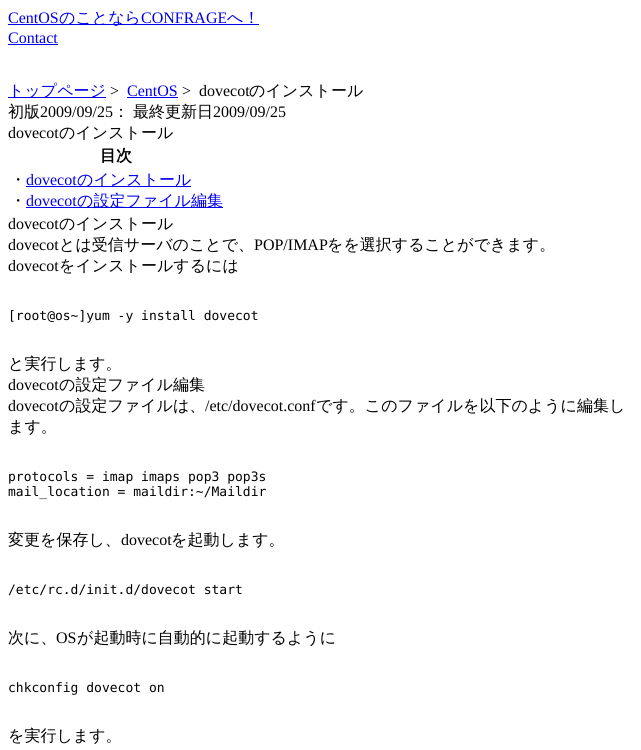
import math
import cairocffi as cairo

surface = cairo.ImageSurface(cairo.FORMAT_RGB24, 641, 750)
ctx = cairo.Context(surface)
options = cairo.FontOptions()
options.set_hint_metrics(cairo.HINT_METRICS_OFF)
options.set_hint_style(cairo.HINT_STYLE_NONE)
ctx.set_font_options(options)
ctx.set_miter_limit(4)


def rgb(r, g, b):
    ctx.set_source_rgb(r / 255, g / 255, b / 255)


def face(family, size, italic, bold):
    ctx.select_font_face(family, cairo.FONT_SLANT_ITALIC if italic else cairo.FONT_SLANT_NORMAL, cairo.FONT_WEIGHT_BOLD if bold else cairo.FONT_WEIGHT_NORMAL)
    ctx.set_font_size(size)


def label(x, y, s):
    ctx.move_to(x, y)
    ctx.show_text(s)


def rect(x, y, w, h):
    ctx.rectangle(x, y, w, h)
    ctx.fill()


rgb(255, 255, 255)
ctx.paint()
face('Liberation Serif', 16, 0, 0)
rgb(0, 0, 238)
label(8, 23, 'CentOS')
rect(8, 24, 251, 1)
face('WenQuanYi Zen Hei Medium', 16, 0, 0)
label(59, 23, 'のことなら')
face('Liberation Serif', 16, 0, 0)
label(141, 23, 'CONFRAGE')
face('WenQuanYi Zen Hei Medium', 16, 0, 0)
label(227, 23, 'へ！')
face('Liberation Serif', 16, 0, 0)
label(8, 43, 'Contact')
rect(8, 44, 50, 1)
rect(8, 97, 98, 1)
face('WenQuanYi Zen Hei Medium', 16, 0, 0)
label(8, 96, 'トップページ')
face('Liberation Serif', 16, 0, 0)
rgb(0, 0, 0)
label(110, 96, '>')
rgb(0, 0, 238)
label(127, 96, 'CentOS')
rect(127, 97, 51, 1)
rgb(0, 0, 0)
label(182, 96, '>')
label(199, 96, 'dovecot')
face('WenQuanYi Zen Hei Medium', 16, 0, 0)
label(249, 96, 'のインストール')
label(8, 117, '初版')
face('Liberation Serif', 16, 0, 0)
label(40, 117, '2009/09/25')
face('WenQuanYi Zen Hei Medium', 16, 0, 0)
label(113, 117, '：')
label(133, 117, '最終更新日')
face('Liberation Serif', 16, 0, 0)
label(213, 117, '2009/09/25')
label(8, 138, 'dovecot')
face('WenQuanYi Zen Hei Medium', 16, 0, 0)
label(59, 138, 'のインストール')
face('WenQuanYi Zen Hei', 16, 0, 1)
label(100, 161, '目次')
face('WenQuanYi Zen Hei Medium', 16, 0, 0)
label(10, 185, '・')
face('Liberation Serif', 16, 0, 0)
rgb(0, 0, 238)
label(26, 185, 'dovecot')
rect(26, 186, 165, 1)
face('WenQuanYi Zen Hei Medium', 16, 0, 0)
label(77, 185, 'のインストール')
rgb(0, 0, 0)
label(10, 206, '・')
face('Liberation Serif', 16, 0, 0)
rgb(0, 0, 238)
label(26, 206, 'dovecot')
rect(26, 207, 197, 1)
face('WenQuanYi Zen Hei Medium', 16, 0, 0)
label(77, 206, 'の設定ファイル編集')
face('Liberation Serif', 16, 0, 0)
rgb(0, 0, 0)
label(8, 229, 'dovecot')
face('WenQuanYi Zen Hei Medium', 16, 0, 0)
label(59, 229, 'のインストール')
face('Liberation Serif', 16, 0, 0)
label(8, 250, 'dovecot')
face('WenQuanYi Zen Hei Medium', 16, 0, 0)
label(59, 250, 'とは受信サーバのことで、')
face('Liberation Serif', 16, 0, 0)
label(254, 250, 'POP/IMAP')
face('WenQuanYi Zen Hei Medium', 16, 0, 0)
label(327, 250, 'をを選択することができます。')
face('Liberation Serif', 16, 0, 0)
label(8, 271, 'dovecot')
face('WenQuanYi Zen Hei Medium', 16, 0, 0)
label(59, 271, 'をインストールするには')
face('DejaVu Sans Mono', 13, 0, 0)
label(8, 320, '[root@os~]yum -y install dovecot')
face('WenQuanYi Zen Hei Medium', 16, 0, 0)
label(8, 369, 'と実行します。')
face('Liberation Serif', 16, 0, 0)
label(8, 390, 'dovecot')
face('WenQuanYi Zen Hei Medium', 16, 0, 0)
label(59, 390, 'の設定ファイル編集')
face('Liberation Serif', 16, 0, 0)
label(8, 411, 'dovecot')
face('WenQuanYi Zen Hei Medium', 16, 0, 0)
label(59, 411, 'の設定ファイルは、')
face('Liberation Serif', 16, 0, 0)
label(205, 411, '/etc/dovecot.conf')
face('WenQuanYi Zen Hei Medium', 16, 0, 0)
label(316, 411, 'です。このファイルを以下のように編集し')
label(8, 432, 'ます。')
face('DejaVu Sans Mono', 13, 0, 0)
label(8, 481, 'protocols = imap imaps pop3 pop3s')
label(8, 496, 'mail_location = maildir:~/Maildir')
face('WenQuanYi Zen Hei Medium', 16, 0, 0)
label(8, 545, '変更を保存し、')
face('Liberation Serif', 16, 0, 0)
label(121, 545, 'dovecot')
face('WenQuanYi Zen Hei Medium', 16, 0, 0)
label(171, 545, 'を起動します。')
face('DejaVu Sans Mono', 13, 0, 0)
label(8, 594, '/etc/rc.d/init.d/dovecot start')
face('WenQuanYi Zen Hei Medium', 16, 0, 0)
label(8, 643, '次に、')
face('Liberation Serif', 16, 0, 0)
label(56, 643, 'OS')
face('WenQuanYi Zen Hei Medium', 16, 0, 0)
label(77, 643, 'が起動時に自動的に起動するように')
face('DejaVu Sans Mono', 13, 0, 0)
label(8, 692, 'chkconfig dovecot on')
face('WenQuanYi Zen Hei Medium', 16, 0, 0)
label(8, 741, 'を実行します。')
surface.write_to_png('render.png')
